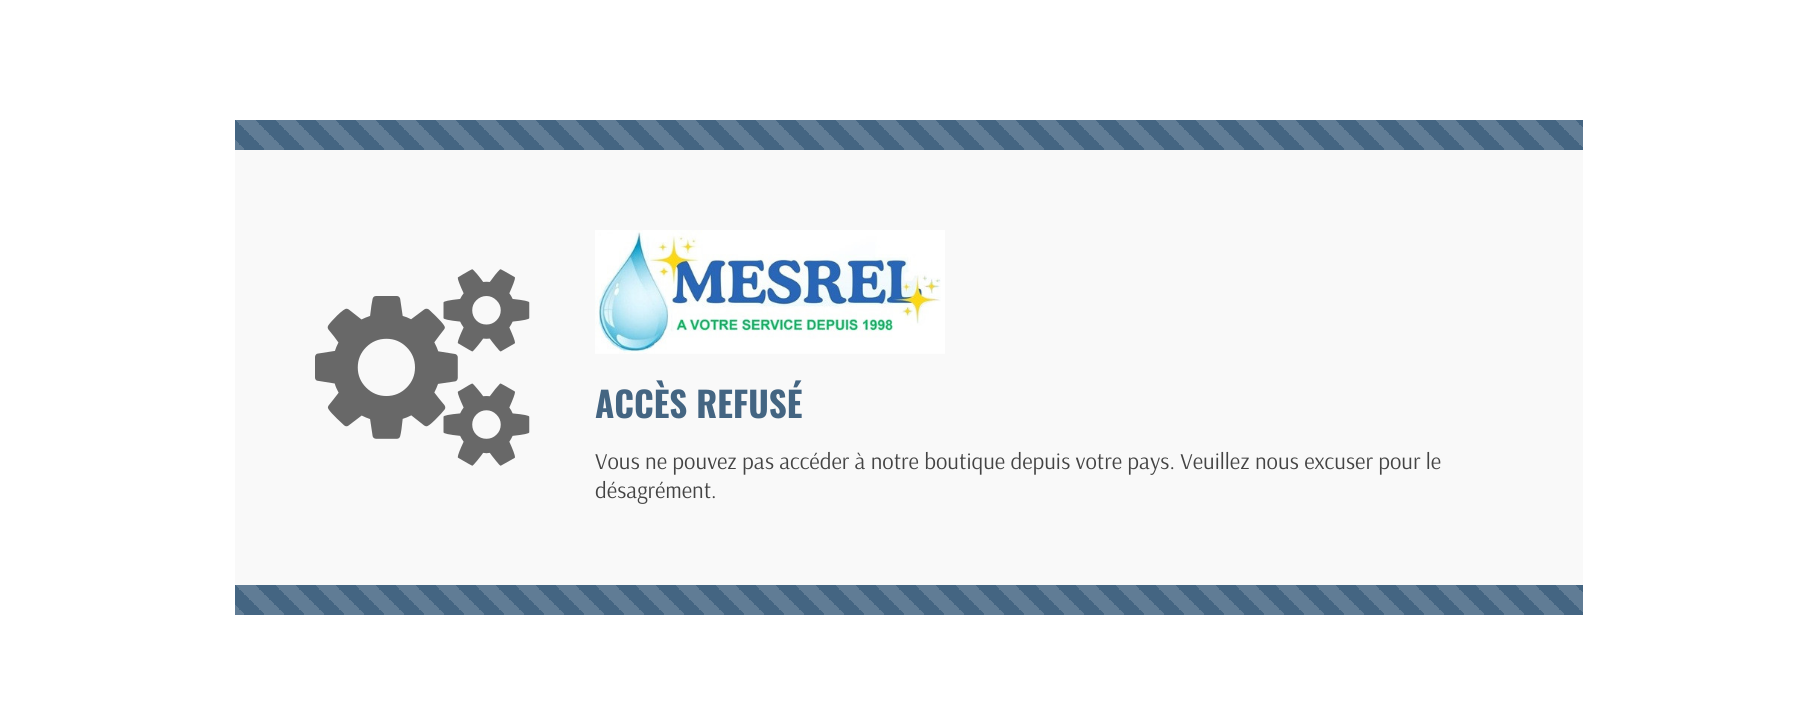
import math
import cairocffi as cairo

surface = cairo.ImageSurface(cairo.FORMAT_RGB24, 1817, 726)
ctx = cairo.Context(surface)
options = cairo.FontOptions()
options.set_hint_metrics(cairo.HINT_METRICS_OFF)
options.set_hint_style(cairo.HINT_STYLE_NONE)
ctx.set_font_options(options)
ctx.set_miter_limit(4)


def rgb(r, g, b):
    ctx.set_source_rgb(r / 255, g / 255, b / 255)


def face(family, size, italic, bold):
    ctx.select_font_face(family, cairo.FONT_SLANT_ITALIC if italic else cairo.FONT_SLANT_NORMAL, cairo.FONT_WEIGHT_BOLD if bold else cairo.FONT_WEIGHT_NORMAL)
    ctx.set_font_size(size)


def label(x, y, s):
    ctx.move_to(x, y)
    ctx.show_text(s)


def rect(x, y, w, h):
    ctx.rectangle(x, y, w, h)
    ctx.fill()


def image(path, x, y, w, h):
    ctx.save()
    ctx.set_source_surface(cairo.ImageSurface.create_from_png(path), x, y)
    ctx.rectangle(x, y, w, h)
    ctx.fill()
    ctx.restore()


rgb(255, 255, 255)
ctx.paint()
rgb(68, 101, 130)
rect(235, 120, 1348, 30)
image('image0.png', 235, 120, 1348, 30)
rgb(249, 249, 249)
rect(235, 150, 1348, 435)
image('image1.png', 315, 269, 215, 197)
image('image2.png', 595, 230, 350, 124)
face('Oswald', 35, 0, 1)
rgb(68, 101, 130)
label(595, 418, 'ACCÈS REFUSÉ')
face('Arsenal', 22.75, 0, 0)
rgb(68, 68, 68)
label(595, 469, 'Vous ne pouvez pas accéder à notre boutique depuis votre pays. Veuillez nous excuser pour le')
label(595, 498, 'désagrément.')
rgb(68, 101, 130)
rect(235, 585, 1348, 30)
image('image0.png', 235, 585, 1348, 30)
surface.write_to_png('render.png')
